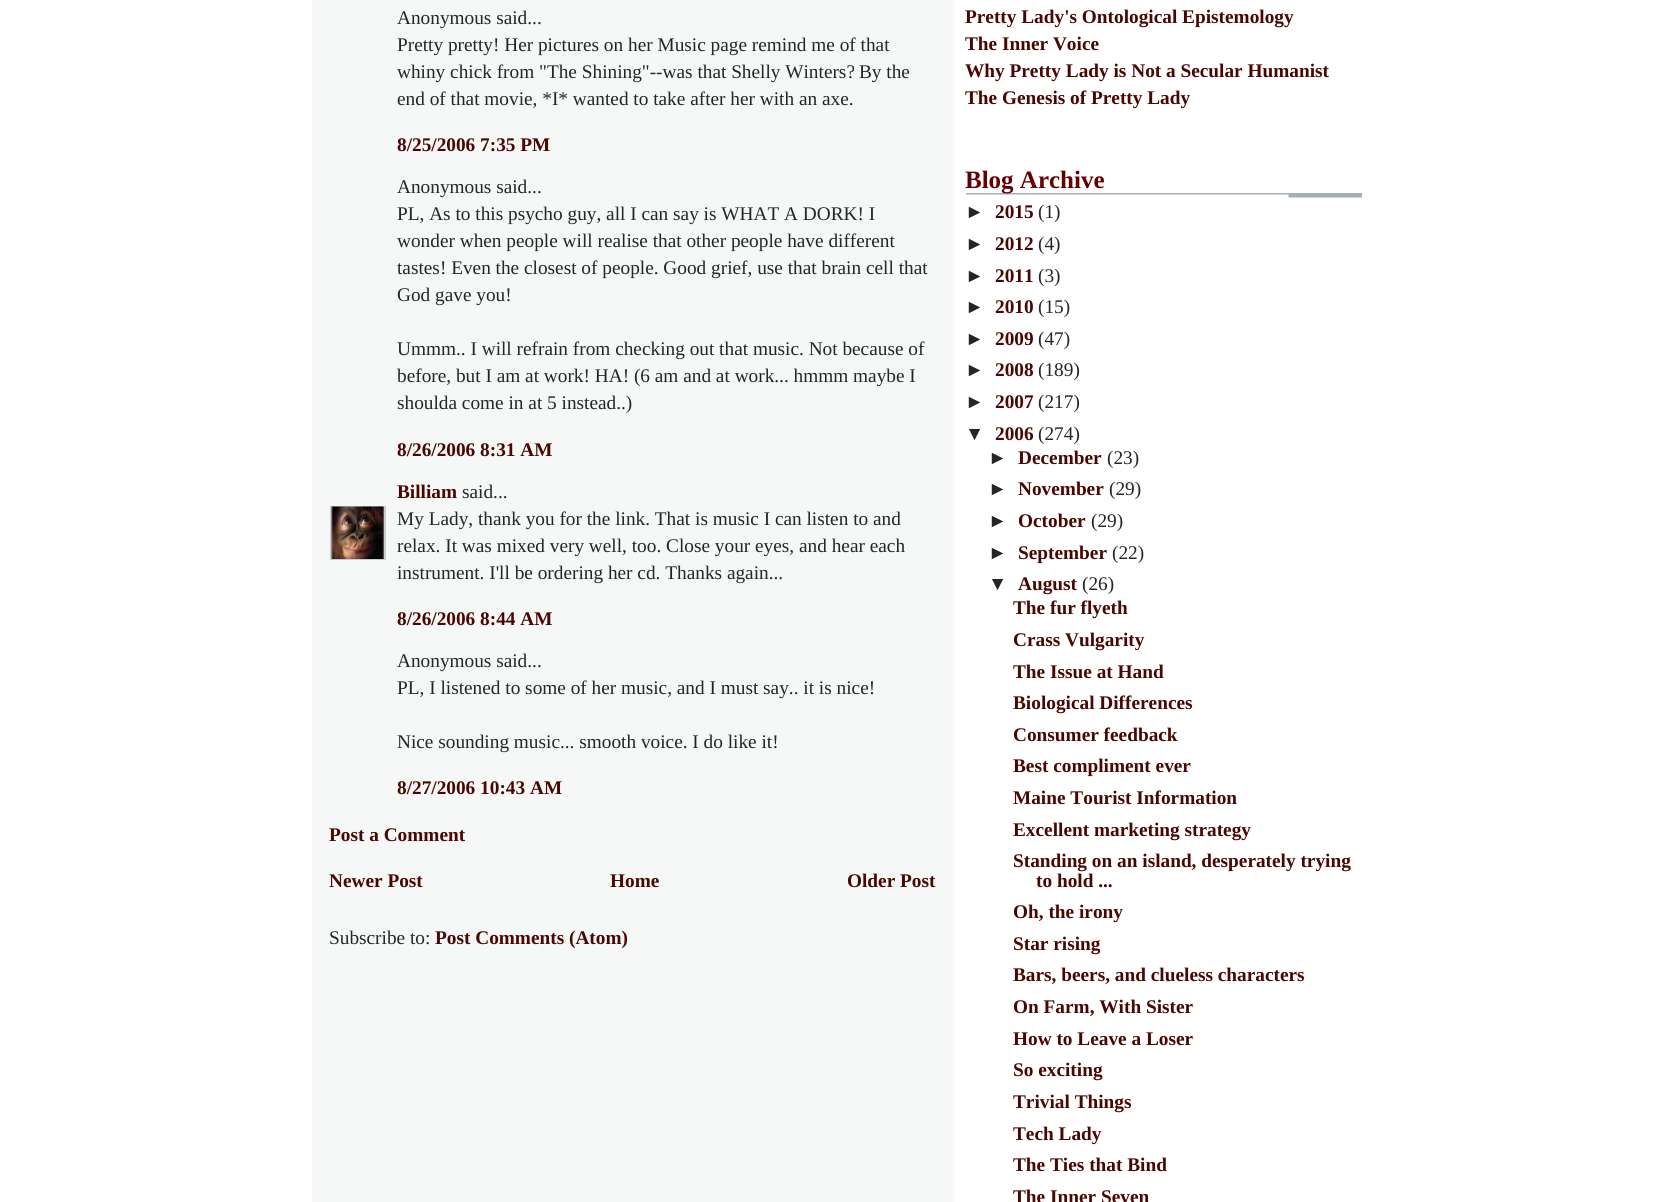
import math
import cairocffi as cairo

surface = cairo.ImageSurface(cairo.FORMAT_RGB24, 1672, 1202)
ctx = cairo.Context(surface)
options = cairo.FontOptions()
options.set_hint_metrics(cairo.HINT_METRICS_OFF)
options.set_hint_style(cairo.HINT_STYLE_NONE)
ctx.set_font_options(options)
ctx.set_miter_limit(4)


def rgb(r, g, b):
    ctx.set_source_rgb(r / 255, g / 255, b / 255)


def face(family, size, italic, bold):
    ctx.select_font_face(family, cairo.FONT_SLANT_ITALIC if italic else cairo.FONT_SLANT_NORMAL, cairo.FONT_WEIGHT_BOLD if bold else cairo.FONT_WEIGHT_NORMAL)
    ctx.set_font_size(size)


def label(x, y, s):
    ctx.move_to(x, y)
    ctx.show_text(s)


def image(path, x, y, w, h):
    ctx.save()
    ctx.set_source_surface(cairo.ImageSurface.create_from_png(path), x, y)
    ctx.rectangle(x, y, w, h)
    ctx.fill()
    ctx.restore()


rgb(255, 255, 255)
ctx.paint()
image('image0.png', 312, 0, 644, 1202)
face('Liberation Serif', 19.3, 0, 0)
rgb(35, 37, 39)
label(397, 24, 'Anonymous said...')
label(397, 51, 'Pretty pretty! Her pictures on her Music page remind me of that')
label(397, 78, 'whiny chick from "The Shining"--was that Shelly Winters?')
label(859, 78, 'By the')
label(397, 105, 'end of that movie, *I* wanted to take after her with an axe.')
face('Liberation Serif', 19.3, 0, 1)
rgb(74, 7, 1)
label(397, 151, '8/25/2006 7:35 PM')
face('Liberation Serif', 19.3, 0, 0)
rgb(35, 37, 39)
label(397, 193, 'Anonymous said...')
label(397, 220, 'PL, As to this psycho guy, all I can say is WHAT A DORK! I')
label(397, 247, 'wonder when people will realise that other people have different')
label(397, 274, 'tastes! Even the closest of people. Good grief, use that brain cell that')
label(397, 301, 'God gave you!')
label(397, 355, 'Ummm.. I will refrain from checking out that music. Not because of')
label(397, 382, 'before, but I am at work! HA! (6 am and at work... hmmm maybe I')
label(397, 409, 'shoulda come in at 5 instead..)')
face('Liberation Serif', 19.3, 0, 1)
rgb(74, 7, 1)
label(397, 456, '8/26/2006 8:31 AM')
label(397, 498, 'Billiam')
face('Liberation Serif', 19.3, 0, 0)
rgb(35, 37, 39)
label(462, 498, 'said...')
ctx.save()
ctx.rectangle(330, 506, 56, 54)
ctx.clip()
ctx.rectangle(331, 507, 54, 53)
rgb(204, 204, 204)
ctx.stroke()
ctx.restore()
image('image1.png', 331, 506, 53, 53)
label(397, 525, 'My Lady, thank you for the link. That is music I can listen to and')
label(397, 552, 'relax. It was mixed very well, too. Close your eyes, and hear each')
label(397, 579, 'instrument. I\'ll be ordering her cd. Thanks again...')
face('Liberation Serif', 19.3, 0, 1)
rgb(74, 7, 1)
label(397, 625, '8/26/2006 8:44 AM')
face('Liberation Serif', 19.3, 0, 0)
rgb(35, 37, 39)
label(397, 667, 'Anonymous said...')
label(397, 694, 'PL, I listened to some of her music, and I must say.. it is nice!')
label(397, 748, 'Nice sounding music... smooth voice. I do like it!')
face('Liberation Serif', 19.3, 0, 1)
rgb(74, 7, 1)
label(397, 794, '8/27/2006 10:43 AM')
label(329, 841, 'Post a Comment')
label(329, 887, 'Newer Post')
label(610, 887, 'Home')
label(847, 887, 'Older Post')
face('Liberation Serif', 19.3, 0, 0)
rgb(35, 37, 39)
label(329, 944, 'Subscribe to:')
face('Liberation Serif', 19.3, 0, 1)
rgb(74, 7, 1)
label(435, 944, 'Post Comments (Atom)')
label(965, 23, 'Pretty Lady\'s Ontological Epistemology')
label(965, 50, 'The Inner Voice')
label(965, 77, 'Why Pretty Lady is Not a Secular Humanist')
label(965, 104, 'The Genesis of Pretty Lady')
image('image2.png', 966, 193, 396, 5)
face('Liberation Serif', 25, 0, 1)
rgb(102, 0, 0)
label(965, 188, 'Blog Archive')
face('Liberation Sans', 19.3, 0, 1)
rgb(35, 37, 39)
label(965, 218, '►')
face('Liberation Serif', 19.3, 0, 1)
rgb(74, 7, 1)
label(995, 218, '2015')
face('Liberation Serif', 19.3, 0, 0)
rgb(35, 37, 39)
label(1038, 218, '(1)')
face('Liberation Sans', 19.3, 0, 1)
label(965, 250, '►')
face('Liberation Serif', 19.3, 0, 1)
rgb(74, 7, 1)
label(995, 250, '2012')
face('Liberation Serif', 19.3, 0, 0)
rgb(35, 37, 39)
label(1038, 250, '(4)')
face('Liberation Sans', 19.3, 0, 1)
label(965, 282, '►')
face('Liberation Serif', 19.3, 0, 1)
rgb(74, 7, 1)
label(995, 282, '2011')
face('Liberation Serif', 19.3, 0, 0)
rgb(35, 37, 39)
label(1038, 282, '(3)')
face('Liberation Sans', 19.3, 0, 1)
label(965, 313, '►')
face('Liberation Serif', 19.3, 0, 1)
rgb(74, 7, 1)
label(995, 313, '2010')
face('Liberation Serif', 19.3, 0, 0)
rgb(35, 37, 39)
label(1038, 313, '(15)')
face('Liberation Sans', 19.3, 0, 1)
label(965, 345, '►')
face('Liberation Serif', 19.3, 0, 1)
rgb(74, 7, 1)
label(995, 345, '2009')
face('Liberation Serif', 19.3, 0, 0)
rgb(35, 37, 39)
label(1038, 345, '(47)')
face('Liberation Sans', 19.3, 0, 1)
label(965, 376, '►')
face('Liberation Serif', 19.3, 0, 1)
rgb(74, 7, 1)
label(995, 376, '2008')
face('Liberation Serif', 19.3, 0, 0)
rgb(35, 37, 39)
label(1038, 376, '(189)')
face('Liberation Sans', 19.3, 0, 1)
label(965, 408, '►')
face('Liberation Serif', 19.3, 0, 1)
rgb(74, 7, 1)
label(995, 408, '2007')
face('Liberation Serif', 19.3, 0, 0)
rgb(35, 37, 39)
label(1038, 408, '(217)')
face('Liberation Sans', 19.3, 0, 1)
label(965, 440, '▼')
face('Liberation Serif', 19.3, 0, 1)
rgb(74, 7, 1)
label(995, 440, '2006')
face('Liberation Serif', 19.3, 0, 0)
rgb(35, 37, 39)
label(1038, 440, '(274)')
face('Liberation Sans', 19.3, 0, 1)
label(988, 464, '►')
face('Liberation Serif', 19.3, 0, 1)
rgb(74, 7, 1)
label(1018, 464, 'December')
face('Liberation Serif', 19.3, 0, 0)
rgb(35, 37, 39)
label(1107, 464, '(23)')
face('Liberation Sans', 19.3, 0, 1)
label(988, 495, '►')
face('Liberation Serif', 19.3, 0, 1)
rgb(74, 7, 1)
label(1018, 495, 'November')
face('Liberation Serif', 19.3, 0, 0)
rgb(35, 37, 39)
label(1109, 495, '(29)')
face('Liberation Sans', 19.3, 0, 1)
label(988, 527, '►')
face('Liberation Serif', 19.3, 0, 1)
rgb(74, 7, 1)
label(1018, 527, 'October')
face('Liberation Serif', 19.3, 0, 0)
rgb(35, 37, 39)
label(1091, 527, '(29)')
face('Liberation Sans', 19.3, 0, 1)
label(988, 559, '►')
face('Liberation Serif', 19.3, 0, 1)
rgb(74, 7, 1)
label(1018, 559, 'September')
face('Liberation Serif', 19.3, 0, 0)
rgb(35, 37, 39)
label(1112, 559, '(22)')
face('Liberation Sans', 19.3, 0, 1)
label(988, 590, '▼')
face('Liberation Serif', 19.3, 0, 1)
rgb(74, 7, 1)
label(1018, 590, 'August')
face('Liberation Serif', 19.3, 0, 0)
rgb(35, 37, 39)
label(1082, 590, '(26)')
face('Liberation Serif', 19.3, 0, 1)
rgb(74, 7, 1)
label(1013, 614, 'The fur flyeth')
label(1013, 646, 'Crass Vulgarity')
label(1013, 678, 'The Issue at Hand')
label(1013, 709, 'Biological Differences')
label(1013, 741, 'Consumer feedback')
label(1013, 772, 'Best compliment ever')
label(1013, 804, 'Maine Tourist Information')
label(1013, 836, 'Excellent marketing strategy')
label(1013, 867, 'Standing on an island, desperately trying')
label(1036, 887, 'to hold ...')
label(1013, 918, 'Oh, the irony')
label(1013, 950, 'Star rising')
label(1013, 981, 'Bars, beers, and clueless characters')
label(1013, 1013, 'On Farm, With Sister')
label(1013, 1045, 'How to Leave a Loser')
label(1013, 1076, 'So exciting')
label(1013, 1108, 'Trivial Things')
label(1013, 1140, 'Tech Lady')
label(1013, 1171, 'The Ties that Bind')
label(1013, 1203, 'The Inner Seven')
surface.write_to_png('render.png')
